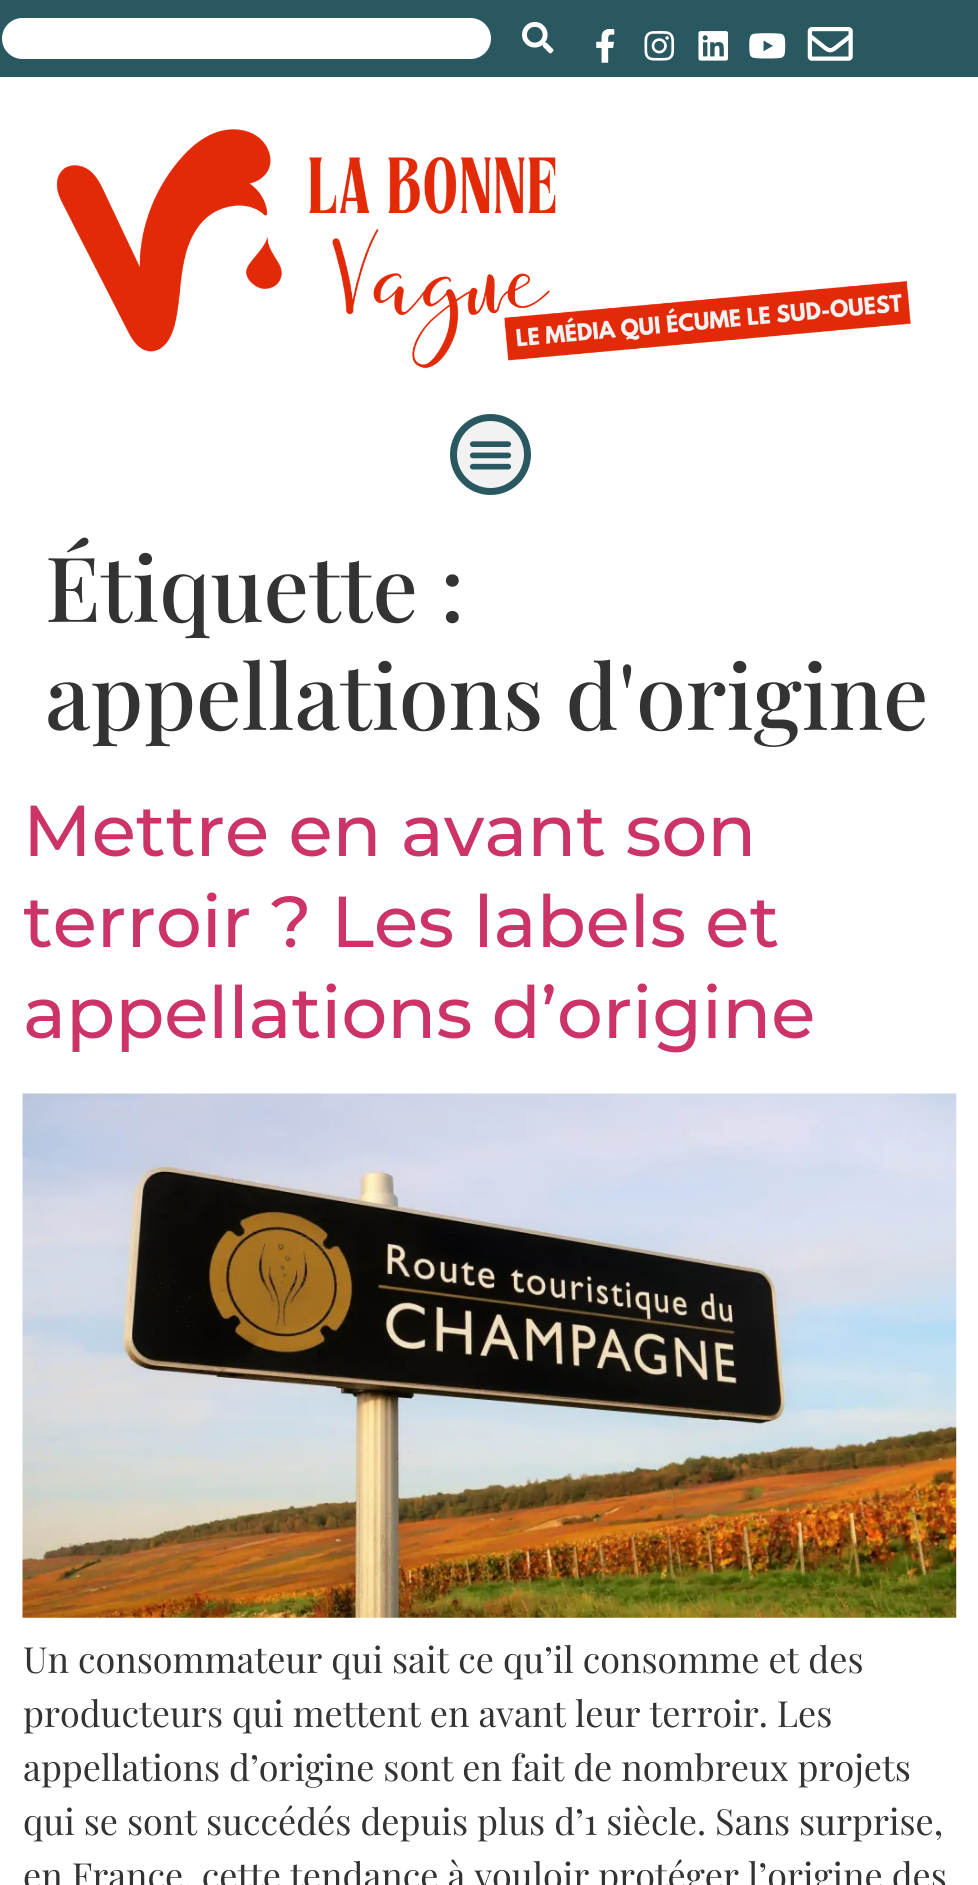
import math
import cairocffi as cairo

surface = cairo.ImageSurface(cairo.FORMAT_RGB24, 978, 1885)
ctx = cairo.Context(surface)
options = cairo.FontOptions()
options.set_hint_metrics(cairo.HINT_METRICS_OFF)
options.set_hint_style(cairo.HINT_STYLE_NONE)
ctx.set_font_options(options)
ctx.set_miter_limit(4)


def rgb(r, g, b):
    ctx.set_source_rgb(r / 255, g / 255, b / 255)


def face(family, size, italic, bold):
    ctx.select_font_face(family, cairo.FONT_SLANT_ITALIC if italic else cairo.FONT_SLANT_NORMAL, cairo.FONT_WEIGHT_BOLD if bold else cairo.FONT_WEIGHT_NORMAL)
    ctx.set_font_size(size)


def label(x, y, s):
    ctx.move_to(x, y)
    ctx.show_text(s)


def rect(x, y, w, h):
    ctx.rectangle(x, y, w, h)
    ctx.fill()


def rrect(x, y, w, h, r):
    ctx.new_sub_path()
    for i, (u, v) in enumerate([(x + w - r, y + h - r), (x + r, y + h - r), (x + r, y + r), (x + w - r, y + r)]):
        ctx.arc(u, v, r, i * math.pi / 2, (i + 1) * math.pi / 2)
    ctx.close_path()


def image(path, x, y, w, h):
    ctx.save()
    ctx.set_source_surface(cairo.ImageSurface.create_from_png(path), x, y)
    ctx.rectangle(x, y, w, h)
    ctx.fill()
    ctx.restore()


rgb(255, 255, 255)
ctx.paint()
rgb(42, 88, 97)
rect(0, 0, 978, 77)
rgb(255, 255, 255)
rrect(2, 18, 489, 41, 20.5)
ctx.fill()
image('image0.png', 522, 21, 32, 33)
image('image1.png', 596, 29, 19, 34)
image('image2.png', 644, 31, 31, 30)
image('image3.png', 698, 31, 30, 30)
image('image4.png', 749, 33, 37, 26)
image('image5.png', 807, 27, 46, 34)
image('image6.png', 56, 129, 855, 240)
rgb(242, 242, 242)
ctx.arc(490.5, 454.5, 37, 0, 2 * math.pi)
ctx.fill_preserve()
rgb(42, 88, 97)
ctx.set_line_width(7)
ctx.stroke()
image('image7.png', 469, 441, 43, 29)
face('Playfair Display Medium', 90, 0, 0)
rgb(51, 51, 51)
label(45, 622, 'Étiquette :')
label(45, 730, 'appellations d\'origine')
face('Montserrat Medium', 72, 0, 0)
rgb(204, 51, 102)
label(23, 856, 'Mettre en avant son')
label(23, 947, 'terroir ? Les labels et')
label(23, 1038, 'appellations d’origine')
image('image8.png', 22, 1093, 935, 525)
face('Playfair Display', 36, 0, 0)
rgb(51, 51, 51)
label(23, 1673, 'Un consommateur qui sait ce qu’il consomme et des')
label(23, 1727, 'producteurs qui mettent en avant leur terroir. Les')
label(23, 1781, 'appellations d’origine sont en fait de nombreux projets')
label(23, 1835, 'qui se sont succédés depuis plus d’1 siècle. Sans surprise,')
label(23, 1889, 'en France, cette tendance à vouloir protéger l’origine des')
surface.write_to_png('render.png')
